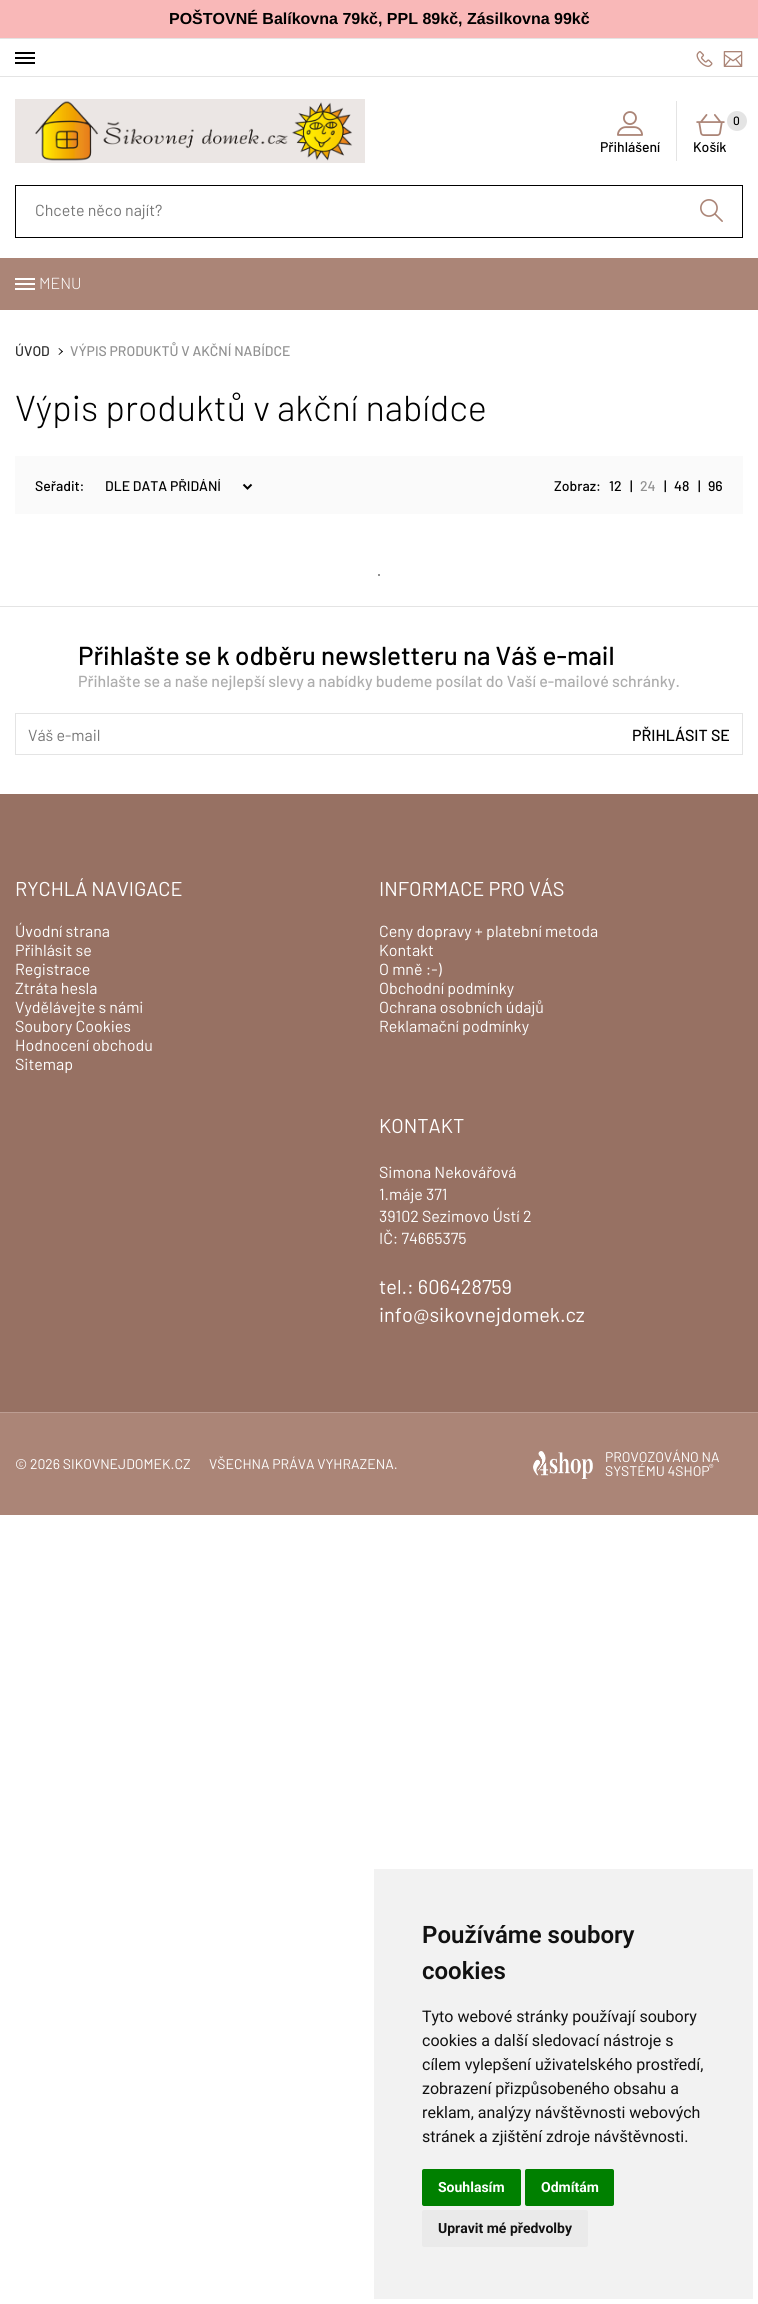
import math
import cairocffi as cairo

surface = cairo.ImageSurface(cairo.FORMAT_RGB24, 758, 2304)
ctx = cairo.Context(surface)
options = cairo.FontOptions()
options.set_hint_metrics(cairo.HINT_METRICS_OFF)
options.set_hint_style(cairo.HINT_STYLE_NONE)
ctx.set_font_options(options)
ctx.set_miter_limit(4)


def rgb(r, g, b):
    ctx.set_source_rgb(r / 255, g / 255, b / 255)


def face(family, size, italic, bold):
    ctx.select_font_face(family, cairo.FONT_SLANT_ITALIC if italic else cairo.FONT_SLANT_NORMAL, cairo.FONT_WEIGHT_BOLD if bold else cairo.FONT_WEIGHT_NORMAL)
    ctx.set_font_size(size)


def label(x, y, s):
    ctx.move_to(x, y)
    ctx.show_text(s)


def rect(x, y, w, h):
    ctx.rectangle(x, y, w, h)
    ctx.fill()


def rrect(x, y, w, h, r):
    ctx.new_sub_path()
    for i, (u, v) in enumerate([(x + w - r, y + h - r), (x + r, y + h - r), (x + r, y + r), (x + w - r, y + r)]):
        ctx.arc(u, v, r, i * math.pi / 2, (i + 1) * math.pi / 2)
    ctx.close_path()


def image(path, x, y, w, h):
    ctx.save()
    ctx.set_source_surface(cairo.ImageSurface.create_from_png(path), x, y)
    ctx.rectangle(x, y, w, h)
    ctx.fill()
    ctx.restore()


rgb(255, 255, 255)
ctx.paint()
rgb(249, 184, 184)
rect(0, 0, 758, 38)
face('Liberation Sans', 16, 0, 1)
rgb(0, 0, 0)
label(169, 24, 'POŠTOVNÉ Balíkovna 79kč, PPL 89kč, Zásilkovna 99kč')
rgb(228, 228, 228)
rect(0, 38, 758, 1)
rect(0, 76, 758, 1)
rgb(0, 0, 0)
rect(15, 62, 20, 2)
rect(15, 57, 20, 2)
rect(15, 52, 20, 2)
image('image0.png', 696, 51, 17, 16)
image('image1.png', 723, 51, 20, 16)
image('image2.png', 15, 99, 350, 64)
image('image3.png', 617, 111, 26, 25)
face('Barlow Medium', 14, 0, 0)
label(600, 152, 'Přihlášení')
rgb(228, 228, 228)
rect(676, 101, 1, 60)
image('image4.png', 696, 114, 29, 22)
ctx.arc(737, 121, 10, 0, 2 * math.pi)
ctx.fill()
face('Barlow Medium', 12, 0, 0)
rgb(0, 0, 0)
label(733, 125, '0')
face('Barlow Medium', 14, 0, 0)
label(693, 152, 'Košík')
ctx.rectangle(15.5, 185.5, 727, 52)
ctx.set_line_width(1)
ctx.stroke()
face('Barlow', 16, 0, 0)
rgb(117, 117, 117)
label(35, 216, 'Chcete něco najít?')
image('image5.png', 700, 199, 23, 23)
rgb(171, 133, 119)
rect(0, 258, 758, 52)
rgb(255, 255, 255)
rect(15, 288, 20, 2)
rect(15, 283, 20, 2)
rect(15, 278, 20, 2)
face('Barlow Light', 16, 0, 0)
label(39, 289, 'MENU')
face('Barlow Medium', 14, 0, 0)
rgb(45, 45, 45)
label(15, 356, 'ÚVOD')
rgb(0, 0, 0)
ctx.new_path()
ctx.move_to(58.5, 348.5)
ctx.line_to(59, 348)
ctx.line_to(63, 351.5)
ctx.line_to(62, 352)
ctx.close_path()
ctx.fill()
ctx.new_path()
ctx.move_to(58.5, 354.5)
ctx.line_to(62, 351)
ctx.line_to(63, 351.5)
ctx.line_to(59, 355)
ctx.close_path()
ctx.fill()
rgb(145, 145, 145)
label(70, 356, 'VÝPIS PRODUKTŮ V AKČNÍ NABÍDCE')
face('Barlow Light', 36, 0, 0)
rgb(0, 0, 0)
label(15, 421, 'Výpis produktů v akční nabídce')
rgb(250, 250, 250)
rect(15, 456, 728, 58)
face('Barlow Medium', 14, 0, 0)
rgb(0, 0, 0)
label(35, 491, 'Seřadit:')
ctx.new_path()
ctx.move_to(243.5, 484.5)
ctx.line_to(247.5, 488.5)
ctx.line_to(251.5, 484.5)
ctx.set_line_width(2)
ctx.stroke()
ctx.save()
ctx.rectangle(105, 479, 120, 16)
ctx.clip()
label(105, 491, 'DLE DATA PŘIDÁNÍ')
ctx.restore()
label(554, 491, 'Zobraz:')
label(609, 491, '12')
label(630, 491, '|')
rgb(145, 145, 145)
label(640, 491, '24')
rgb(0, 0, 0)
label(664, 491, '|')
label(674, 491, '48')
label(698, 491, '|')
label(708, 491, '96')
rgb(145, 145, 145)
rect(378, 574, 2, 2)
rgb(228, 228, 228)
rect(0, 606, 758, 1)
face('Barlow Medium', 26, 0, 0)
rgb(0, 0, 0)
label(78, 665, 'Přihlašte se k odběru newsletteru na Váš e-mail')
face('Barlow Medium', 16, 0, 0)
rgb(173, 173, 173)
label(78, 687, 'Přihlašte se a naše nejlepší slevy a nabídky budeme posílat do Vaší e-mailové schránky.')
ctx.rectangle(15.5, 713.5, 727, 41)
rgb(228, 228, 228)
ctx.set_line_width(1)
ctx.stroke()
face('Barlow', 16, 0, 0)
rgb(117, 117, 117)
label(28, 741, 'Váš e-mail')
face('Barlow Medium', 16, 0, 0)
rgb(0, 0, 0)
label(632, 741, 'PŘIHLÁSIT SE')
rgb(151, 113, 99)
rect(0, 794, 758, 618)
face('Barlow', 20, 0, 0)
rgb(255, 255, 255)
label(15, 896, 'RYCHLÁ NAVIGACE')
face('Barlow', 16, 0, 0)
label(15, 937, 'Úvodní strana')
label(15, 956, 'Přihlásit se')
label(15, 975, 'Registrace')
label(15, 994, 'Ztráta hesla')
label(15, 1013, 'Vydělávejte s námi')
label(15, 1032, 'Soubory Cookies')
label(15, 1051, 'Hodnocení obchodu')
label(15, 1070, 'Sitemap')
face('Barlow', 20, 0, 0)
label(379, 896, 'INFORMACE PRO VÁS')
face('Barlow', 16, 0, 0)
label(379, 937, 'Ceny dopravy + platební metoda')
label(379, 956, 'Kontakt')
label(379, 975, 'O mně :-)')
label(379, 994, 'Obchodní podmínky')
label(379, 1013, 'Ochrana osobních údajů')
label(379, 1032, 'Reklamační podmínky')
face('Barlow', 20, 0, 0)
label(379, 1133, 'KONTAKT')
face('Barlow', 16, 0, 0)
label(379, 1178, 'Simona Nekovářová')
label(379, 1200, '1.máje 371')
label(379, 1222, '39102 Sezimovo Ústí 2')
label(379, 1244, 'IČ: 74665375')
face('Barlow', 20, 0, 0)
label(379, 1294, 'tel.: 606428759')
label(379, 1322, 'info@sikovnejdomek.cz')
rgb(171, 133, 119)
rect(0, 1413, 758, 102)
rgb(188, 157, 146)
rect(0, 1412, 758, 1)
face('Barlow', 14, 0, 0)
rgb(255, 255, 255)
label(15, 1469, '© 2026 SIKOVNEJDOMEK.CZ')
label(209, 1469, 'VŠECHNA PRÁVA VYHRAZENA.')
image('image6.png', 533, 1451, 60, 28)
label(605, 1462, 'PROVOZOVÁNO NA')
label(605, 1476, 'SYSTÉMU 4SHOP')
face('Barlow', 10, 0, 0)
label(709, 1471, '®')
rgb(242, 242, 242)
rect(374, 1869, 379, 430)
face('Roboto SemiBold', 24, 0, 0)
rgb(17, 17, 17)
label(422, 1943, 'Používáme soubory')
label(422, 1979, 'cookies')
face('Roboto', 16, 0, 0)
label(422, 2022, 'Tyto webové stránky používají soubory')
label(422, 2046, 'cookies a další sledovací nástroje s')
label(422, 2070, 'cílem vylepšení uživatelského prostředí,')
label(422, 2094, 'zobrazení přizpůsobeného obsahu a')
label(422, 2118, 'reklam, analýzy návštěvnosti webových')
label(422, 2142, 'stránek a zjištění zdroje návštěvnosti.')
rgb(0, 128, 0)
rrect(422, 2169, 99, 37, 2)
ctx.fill()
face('Roboto', 14, 0, 1)
rgb(255, 255, 255)
label(438, 2192, 'Souhlasím')
rgb(0, 128, 0)
rrect(525, 2169, 89, 37, 2)
ctx.fill()
rgb(255, 255, 255)
label(541, 2192, 'Odmítám')
rgb(234, 234, 234)
rrect(422, 2210, 166, 37, 2)
ctx.fill()
rgb(17, 17, 17)
label(438, 2233, 'Upravit mé předvolby')
surface.write_to_png('render.png')
